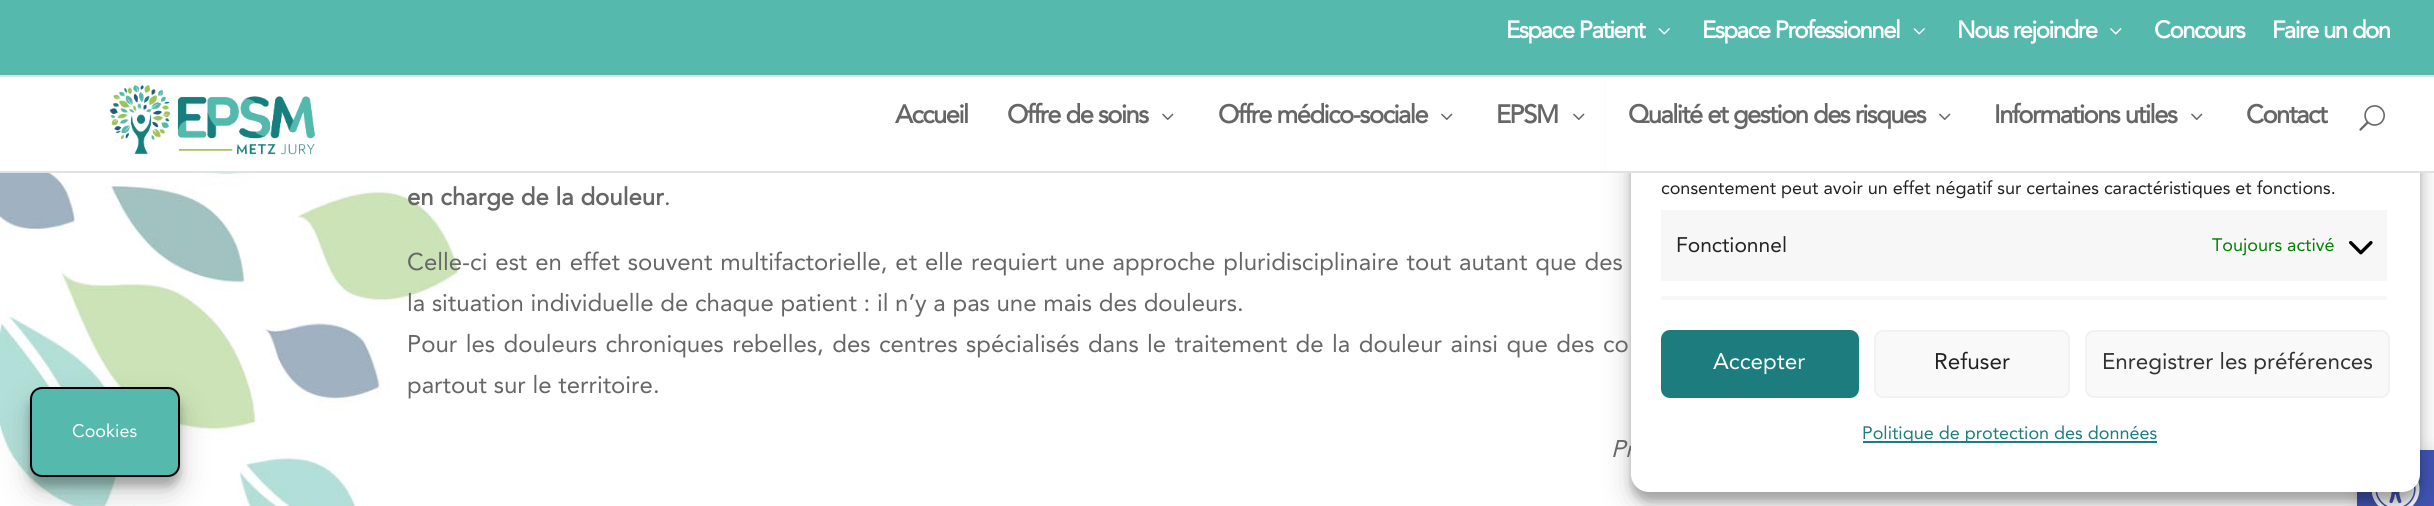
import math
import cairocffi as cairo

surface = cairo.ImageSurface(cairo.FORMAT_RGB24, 2434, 506)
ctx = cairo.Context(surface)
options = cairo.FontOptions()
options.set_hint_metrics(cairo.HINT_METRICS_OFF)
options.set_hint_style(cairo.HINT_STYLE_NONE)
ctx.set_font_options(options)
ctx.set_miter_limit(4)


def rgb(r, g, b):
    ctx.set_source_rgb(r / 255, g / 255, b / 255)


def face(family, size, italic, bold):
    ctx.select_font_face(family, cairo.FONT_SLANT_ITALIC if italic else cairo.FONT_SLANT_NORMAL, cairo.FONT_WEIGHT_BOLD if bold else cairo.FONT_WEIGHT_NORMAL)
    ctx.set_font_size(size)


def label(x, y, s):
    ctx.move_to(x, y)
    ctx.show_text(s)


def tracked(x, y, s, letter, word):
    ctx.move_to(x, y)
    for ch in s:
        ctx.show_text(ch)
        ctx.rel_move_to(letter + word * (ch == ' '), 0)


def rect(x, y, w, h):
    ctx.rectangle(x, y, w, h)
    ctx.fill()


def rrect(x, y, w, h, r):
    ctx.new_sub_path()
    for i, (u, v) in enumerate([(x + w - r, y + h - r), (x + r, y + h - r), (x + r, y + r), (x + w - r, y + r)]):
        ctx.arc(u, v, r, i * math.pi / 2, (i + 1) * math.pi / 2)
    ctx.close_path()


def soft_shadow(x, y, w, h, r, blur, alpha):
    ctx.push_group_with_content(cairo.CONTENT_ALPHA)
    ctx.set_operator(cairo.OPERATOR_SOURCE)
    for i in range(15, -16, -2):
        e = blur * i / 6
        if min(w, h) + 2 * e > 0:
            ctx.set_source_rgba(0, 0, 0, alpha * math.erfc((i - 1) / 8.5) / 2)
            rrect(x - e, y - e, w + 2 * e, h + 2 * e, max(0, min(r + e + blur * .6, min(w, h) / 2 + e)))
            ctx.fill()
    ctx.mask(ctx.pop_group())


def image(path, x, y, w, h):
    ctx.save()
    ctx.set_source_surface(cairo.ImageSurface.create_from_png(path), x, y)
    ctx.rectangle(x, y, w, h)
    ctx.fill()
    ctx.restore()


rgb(255, 255, 255)
ctx.paint()
rgb(0, 0, 0)
soft_shadow(2357, 450, 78, 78, 0, 7.5, 0.1)
rgb(64, 84, 178)
rect(2357, 450, 77, 56)
image('image7.png', 2372, 481, 48, 25)
rgb(0, 0, 0)
soft_shadow(1631, 24, 789, 477, 18, 4.5, 0.23)
soft_shadow(1631, 30, 789, 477, 18, 15, 0.19)
face('Avenir', 24, 1, 0)
rgb(102, 102, 102)
label(1611, 457, 'Pr')
rgb(255, 255, 255)
rrect(1631, 15, 789, 477, 18)
ctx.fill()
rgb(85, 185, 173)
rect(0, 0, 2434, 75)
rgb(225, 225, 225)
rect(0, 75, 2434, 2)
face('Avenir', 24, 0, 1)
rgb(255, 255, 255)
tracked(1506, 38, 'Espace Patient', -1.5, 0)
image('image0.png', 1658, 28, 12, 7)
tracked(1702, 38, 'Espace Professionnel', -1.5, 0)
image('image0.png', 1913, 28, 12, 7)
tracked(1957, 38, 'Nous rejoindre', -1.5, 0)
image('image1.png', 2110, 28, 12, 7)
tracked(2154, 38, 'Concours', -1.5, 0)
tracked(2272, 38, 'Faire un don', -1.5, 0)
rect(1607, 77, 827, 94)
rgb(225, 225, 225)
rect(0, 171, 2434, 2)
image('image2.png', 109, 84, 206, 71)
face('Avenir', 25.5, 0, 1)
rgb(102, 102, 102)
tracked(895, 123, 'Accueil', -1.5, 0)
tracked(1007, 123, 'Offre de soins', -1.5, 0)
image('image3.png', 1162, 113, 12, 7)
tracked(1218, 123, 'Offre médico-sociale', -1.5, 0)
image('image3.png', 1441, 113, 12, 7)
tracked(1496, 123, 'EPSM', -1.5, 0)
image('image3.png', 1573, 113, 12, 7)
tracked(1628, 123, 'Qualité et gestion des risques', -1.5, 0)
image('image3.png', 1939, 113, 12, 7)
tracked(1994, 123, 'Informations utiles', -1.5, 0)
image('image3.png', 2191, 113, 12, 7)
tracked(2246, 123, 'Contact', -1.5, 0)
image('image4.png', 2359, 105, 26, 26)
image('image5.png', 0, 173, 465, 333)
face('Avenir', 24, 0, 1)
label(407, 205, 'en charge de la douleur')
face('Avenir', 24, 0, 0)
label(664, 205, '.')
tracked(407, 270, 'Celle-ci est en effet souvent multifactorielle, et elle requiert une approche pluridisciplinaire tout autant que des', 0, 1.2)
label(407, 311, 'la situation individuelle de chaque patient : il n’y a pas une mais des douleurs.')
tracked(407, 352, 'Pour les douleurs chroniques rebelles, des centres spécialisés dans le traitement de la douleur ainsi que des co', 0, 1.8)
label(407, 393, 'partout sur le territoire.')
rgb(0, 0, 0)
soft_shadow(30, 396, 150, 90, 12, 4.5, 0.23)
soft_shadow(30, 402, 150, 90, 12, 15, 0.19)
rgb(85, 185, 173)
rrect(31, 388, 148, 88, 11)
ctx.fill_preserve()
rgb(0, 0, 0)
ctx.stroke()
face('Avenir', 18, 0, 0)
rgb(255, 255, 255)
label(72, 437, 'Cookies')
rgb(34, 34, 34)
label(1661, 194, 'consentement peut avoir un effet négatif sur certaines caractéristiques et fonctions.')
rgb(247, 247, 247)
rect(1661, 210, 726, 71)
face('Avenir', 21, 0, 0)
rgb(34, 34, 34)
label(1676, 252, 'Fonctionnel')
face('Avenir', 18, 0, 0)
rgb(0, 128, 0)
label(2212, 251, 'Toujours activé')
image('image6.png', 2349, 241, 24, 14)
rgb(247, 247, 247)
rect(1661, 296, 726, 4)
rgb(29, 125, 126)
rrect(1662, 331, 196, 66, 8)
ctx.fill_preserve()
ctx.stroke()
face('Avenir', 22.5, 0, 0)
rgb(255, 255, 255)
label(1713, 369, 'Accepter')
rgb(249, 249, 249)
rrect(1875, 331, 194, 66, 8)
ctx.fill_preserve()
rgb(242, 242, 242)
ctx.stroke()
rgb(34, 34, 34)
label(1934, 369, 'Refuser')
rgb(249, 249, 249)
rrect(2086, 331, 303, 66, 8)
ctx.fill_preserve()
rgb(242, 242, 242)
ctx.stroke()
rgb(51, 51, 51)
label(2102, 369, 'Enregistrer les préférences')
rgb(29, 125, 126)
rect(1863, 441, 294, 2)
face('Avenir', 18, 0, 0)
label(1862, 439, 'Politique de protection des données')
surface.write_to_png('render.png')
